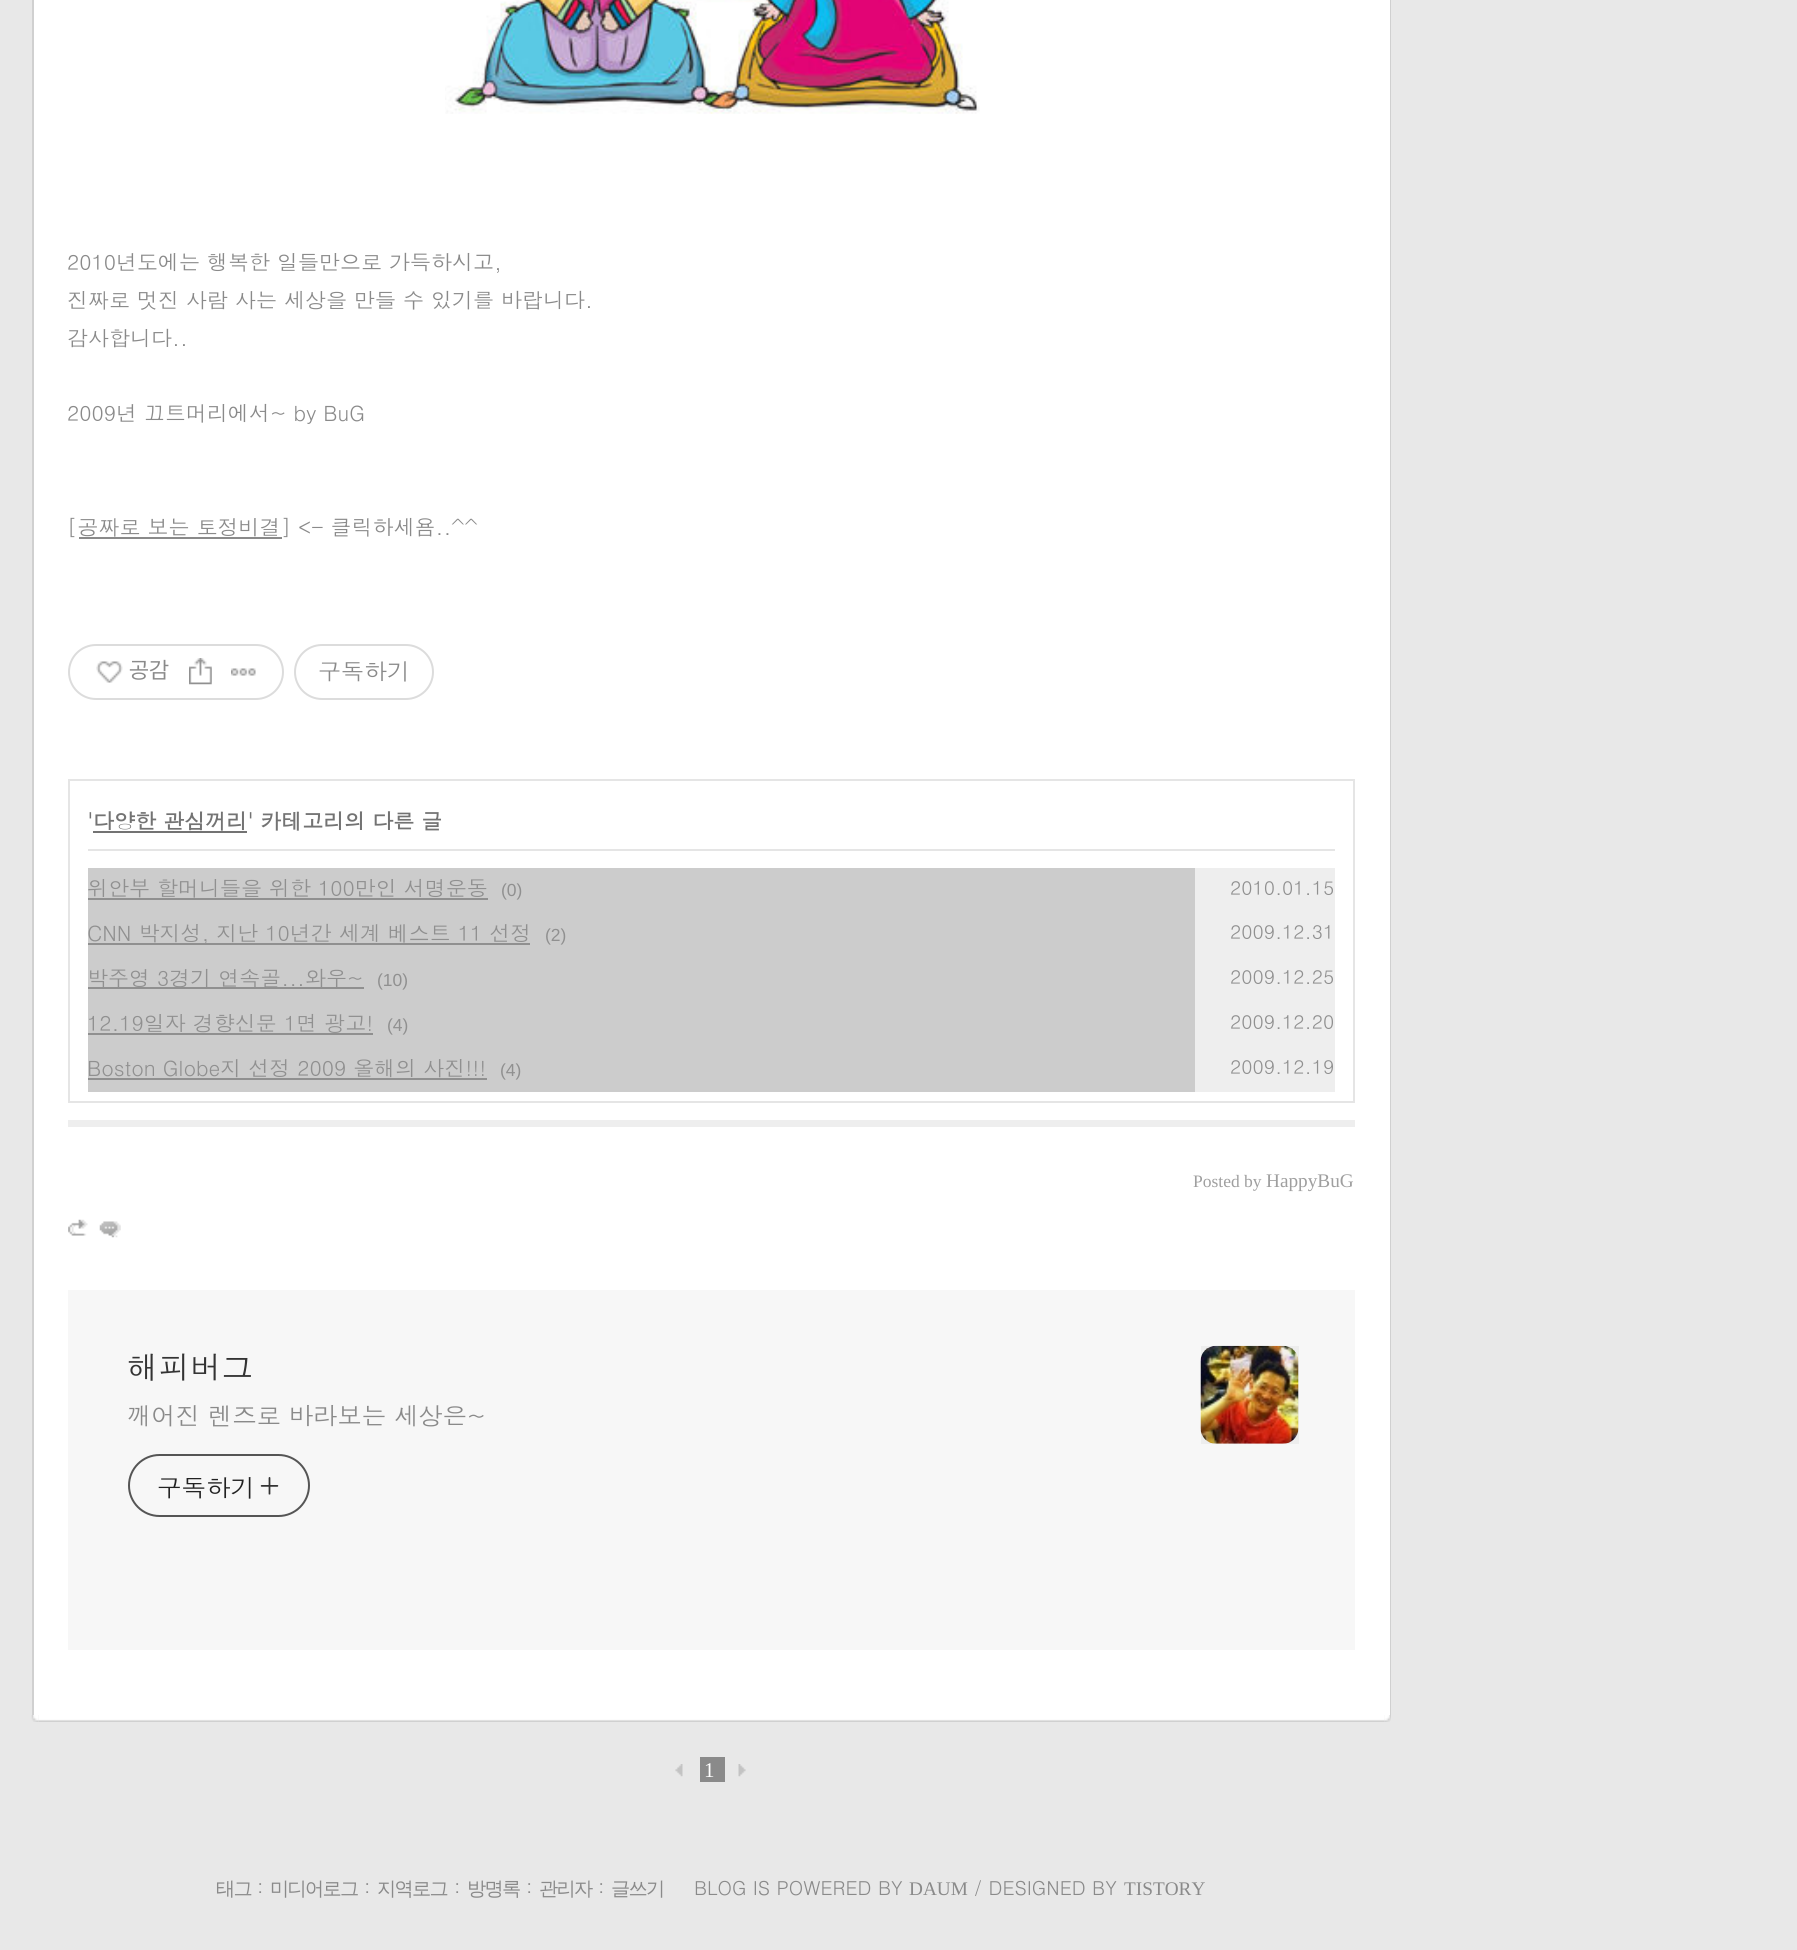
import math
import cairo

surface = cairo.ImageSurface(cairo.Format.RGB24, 1797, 1950)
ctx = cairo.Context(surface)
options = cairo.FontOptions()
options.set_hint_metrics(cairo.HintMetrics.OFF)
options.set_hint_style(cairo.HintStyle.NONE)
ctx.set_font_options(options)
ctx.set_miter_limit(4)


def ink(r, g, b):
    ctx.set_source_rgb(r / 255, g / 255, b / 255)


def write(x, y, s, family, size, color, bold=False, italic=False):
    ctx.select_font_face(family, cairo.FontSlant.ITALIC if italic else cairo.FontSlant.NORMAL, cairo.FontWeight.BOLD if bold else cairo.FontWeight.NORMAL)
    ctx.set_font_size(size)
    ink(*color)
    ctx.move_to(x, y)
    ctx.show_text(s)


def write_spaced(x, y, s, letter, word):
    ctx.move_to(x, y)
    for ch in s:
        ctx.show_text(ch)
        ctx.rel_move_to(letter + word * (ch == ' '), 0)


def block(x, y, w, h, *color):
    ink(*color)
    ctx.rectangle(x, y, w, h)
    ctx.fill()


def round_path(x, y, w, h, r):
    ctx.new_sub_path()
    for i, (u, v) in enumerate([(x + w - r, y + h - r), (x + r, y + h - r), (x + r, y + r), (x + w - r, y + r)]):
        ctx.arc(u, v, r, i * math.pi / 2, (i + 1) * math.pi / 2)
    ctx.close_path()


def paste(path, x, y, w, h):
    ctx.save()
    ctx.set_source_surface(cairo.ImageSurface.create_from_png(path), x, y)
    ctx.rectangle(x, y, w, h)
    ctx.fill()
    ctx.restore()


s1 = dict(family="Dotum", size=21, color=(138, 138, 138))
s2 = dict(family="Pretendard", size=23, color=(138, 138, 138))
s3 = dict(family="Dotum", size=23, color=(138, 138, 138))
s4 = dict(family="Dotum", size=21, color=(115, 115, 115), bold=True)
s5 = dict(family="Dotum", size=21, color=(144, 144, 144))
s6 = dict(family="Liberation Sans", size=17.5, color=(144, 144, 144))
s7 = dict(family="Dotum", size=19.25, color=(144, 144, 144))
s8 = dict(family="Liberation Serif", size=17.5, color=(159, 159, 159))
s9 = dict(family="Liberation Serif", size=19.25, color=(159, 159, 159))
s10 = dict(family="Dotum", size=31.5, color=(51, 51, 51))
s11 = dict(family="Dotum", size=24.5, color=(34, 34, 34))
s12 = dict(family="Liberation Serif", size=21, color=(255, 255, 255))
s13 = dict(family="Dotum", size=19.25, color=(138, 138, 138))
s14 = dict(family="Liberation Serif", size=19.25, color=(138, 138, 138))

ink(232, 232, 232)
ctx.paint()
block(34, 0, 1356, 1715, 255, 255, 255)
block(1390, 0, 1, 1715, 208, 208, 208)
block(32, 0, 2, 1715, 208, 208, 208)
paste("pic1.png", 445, 0, 535, 114)
write(67, 270, "2010년도에는 행복한 일들만으로 가득하시고,", **s1)
write(67, 308, "진짜로 멋진 사람 사는 세상을 만들 수 있기를 바랍니다.", **s1)
write(67, 346, "감사합니다..", **s1)
write(67, 421, "2009년 끄트머리에서~ by BuG", **s1)
write(67, 535, "[공짜로 보는 토정비결] <- 클릭하세욤..^^", **s1)
block(79, 537, 203, 2, 138, 138, 138)
round_path(69, 645, 214, 54, 27)
ink(220, 220, 220)
ctx.stroke()
paste("pic2.png", 96, 661, 27, 22)
write(129, 678, "공감", **s2)
paste("pic3.png", 189, 658, 23, 27)
paste("pic4.png", 231, 668, 25, 8)
round_path(295, 645, 138, 54, 27)
ink(220, 220, 220)
ctx.stroke()
write(318, 680, "구독하기", **s3)
ctx.rectangle(69, 780, 1285, 322)
ink(229, 229, 229)
ctx.stroke()
block(88, 849, 1247, 2, 229, 229, 229)
write(87, 829, "'다양한 관심꺼리' 카테고리의 다른 글", **s4)
block(93, 831, 154, 2, 115, 115, 115)
block(88, 868, 1107, 224, 204, 204, 204)
write(87, 896, "위안부 할머니들을 위한 100만인 서명운동", **s5)
block(88, 898, 400, 2, 144, 144, 144)
write(501, 896, "(0)", **s6)
block(1195, 868, 140, 224, 238, 238, 238)
write(1230, 895, "2010.01.15", **s7)
block(88, 943, 442, 2, 144, 144, 144)
write(87, 941, "CNN 박지성, 지난 10년간 세계 베스트 11 선정", **s5)
write(545, 941, "(2)", **s6)
write(1230, 939, "2009.12.31", **s7)
block(88, 987, 276, 2, 144, 144, 144)
write(87, 986, "박주영 3경기 연속골...와우~", **s5)
write(377, 986, "(10)", **s6)
write(1230, 984, "2009.12.25", **s7)
write(87, 1031, "12.19일자 경향신문 1면 광고!", **s5)
block(88, 1033, 285, 2, 144, 144, 144)
write(387, 1031, "(4)", **s6)
write(1230, 1029, "2009.12.20", **s7)
write(87, 1076, "Boston Globe지 선정 2009 올해의 사진!!!", **s5)
block(88, 1078, 399, 2, 144, 144, 144)
write(500, 1076, "(4)", **s6)
write(1230, 1074, "2009.12.19", **s7)
block(68, 1120, 1287, 7, 238, 238, 238)
write(1193, 1187, "Posted by", **s8)
write(1266, 1187, "HappyBuG", **s9)
paste("pic5.png", 68, 1219, 20, 17)
paste("pic6.png", 99, 1221, 22, 17)
block(68, 1290, 1287, 360, 247, 247, 247)
write(127, 1379, "해피버그", **s10)
ctx.set_font_size(24.5)
ink(138, 138, 138)
write_spaced(127, 1425, "깨어진 렌즈로 바라보는 세상은~", -0.2, 0)
round_path(129, 1455, 180, 61, 30.5)
ink(85, 85, 85)
ctx.stroke()
write(157, 1497, "구독하기", **s11)
paste("pic7.png", 260, 1477, 19, 18)
paste("pic8.png", 1200, 1345, 99, 99)
ctx.set_source_rgba(0, 0, 0, 0.04)
ctx.rectangle(1201, 1346, 98, 98)
ctx.fill()
paste("pic9.png", 31, 1715, 8, 7)
paste("pic10.png", 38, 1715, 1347, 7)
paste("pic11.png", 1384, 1715, 7, 7)
paste("pic12.png", 675, 1764, 8, 13)
block(700, 1757, 25, 25, 138, 138, 138)
write(704, 1777, "1", **s12)
paste("pic13.png", 738, 1764, 8, 13)
ctx.select_font_face("WenQuanYi Zen Hei Medium")
ctx.set_font_size(19.25)
ink(138, 138, 138)
write_spaced(216, 1895, "태그", -1.75, 0)
write(257, 1895, ":", **s13)
ctx.select_font_face("WenQuanYi Zen Hei Medium")
write_spaced(270, 1895, "미디어로그", -1.75, 0)
write(364, 1895, ":", **s13)
ctx.select_font_face("WenQuanYi Zen Hei Medium")
write_spaced(377, 1895, "지역로그", -1.75, 0)
write(454, 1895, ":", **s13)
ctx.select_font_face("WenQuanYi Zen Hei Medium")
write_spaced(467, 1895, "방명록", -1.75, 0)
write(526, 1895, ":", **s13)
ctx.select_font_face("WenQuanYi Zen Hei Medium")
write_spaced(539, 1895, "관리자", -1.75, 0)
write(598, 1895, ":", **s13)
ctx.select_font_face("WenQuanYi Zen Hei Medium")
write_spaced(611, 1895, "글쓰기", -1.75, 0)
write(694, 1895, "BLOG IS POWERED BY", **s13)
write(909, 1895, "DAUM", **s14)
write(974, 1895, "/ DESIGNED BY", **s13)
write(1124, 1895, "TISTORY", **s14)
surface.write_to_png("screenshot.png")
